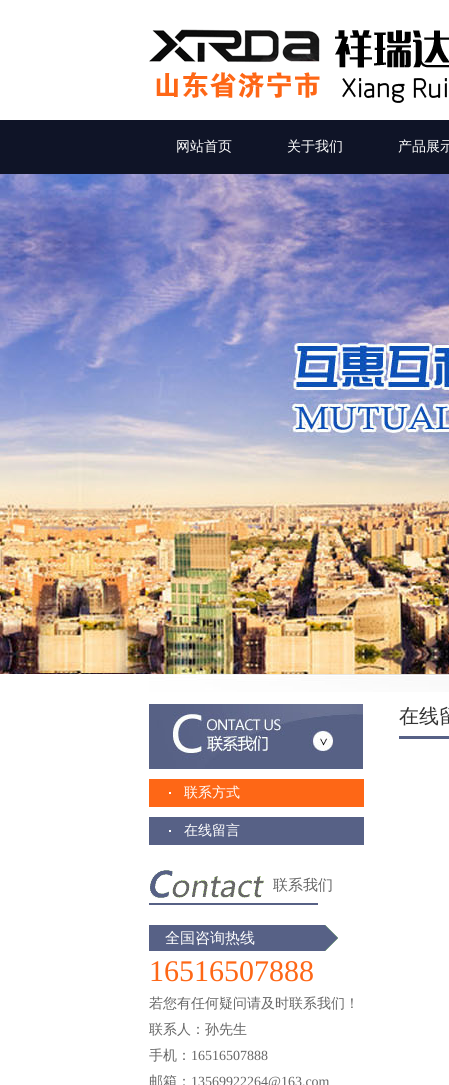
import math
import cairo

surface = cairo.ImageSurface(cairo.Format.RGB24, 449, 1085)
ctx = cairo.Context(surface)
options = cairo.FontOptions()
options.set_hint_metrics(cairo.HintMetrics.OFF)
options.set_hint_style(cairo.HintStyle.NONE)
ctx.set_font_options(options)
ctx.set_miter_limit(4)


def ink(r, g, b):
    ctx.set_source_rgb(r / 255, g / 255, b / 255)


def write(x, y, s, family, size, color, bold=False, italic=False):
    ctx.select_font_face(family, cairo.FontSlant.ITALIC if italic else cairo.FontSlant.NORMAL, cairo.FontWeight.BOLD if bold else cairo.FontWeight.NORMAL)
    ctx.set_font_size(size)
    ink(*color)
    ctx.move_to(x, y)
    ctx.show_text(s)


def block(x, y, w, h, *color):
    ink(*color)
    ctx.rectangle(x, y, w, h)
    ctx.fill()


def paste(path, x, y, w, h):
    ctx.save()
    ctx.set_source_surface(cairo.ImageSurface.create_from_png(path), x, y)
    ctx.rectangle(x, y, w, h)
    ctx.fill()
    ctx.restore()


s1 = dict(family="WenQuanYi Zen Hei Medium", size=14, color=(255, 255, 255))
s2 = dict(family="WenQuanYi Zen Hei Medium", size=20, color=(51, 51, 51))
s3 = dict(family="WenQuanYi Zen Hei Medium", size=15, color=(102, 102, 102))
s4 = dict(family="WenQuanYi Zen Hei Medium", size=15, color=(255, 255, 255))
s5 = dict(family="Liberation Serif", size=30, color=(254, 103, 22))
s6 = dict(family="WenQuanYi Zen Hei Medium", size=14, color=(102, 102, 102))
s7 = dict(family="Liberation Serif", size=14, color=(102, 102, 102))

ink(255, 255, 255)
ctx.paint()
paste("pic1.png", 149, 29, 300, 74)
block(0, 120, 449, 54, 15, 20, 39)
write(176, 151, "网站首页", **s1)
write(287, 151, "关于我们", **s1)
write(398, 151, "产品展示", **s1)
paste("pic2.png", 0, 174, 449, 500)
paste("pic3.png", 149, 674, 300, 18)
block(399, 736, 50, 3, 87, 97, 134)
write(399, 723, "在线留", **s2)
paste("pic4.png", 149, 704, 214, 65)
block(149, 779, 215, 28, 254, 103, 22)
block(169, 792, 2, 2, 254, 255, 255)
write(184, 797, "联系方式", **s1)
block(149, 817, 215, 28, 87, 97, 134)
block(169, 830, 2, 2, 254, 255, 255)
write(184, 835, "在线留言", **s1)
paste("pic5.png", 149, 870, 169, 35)
write(273, 890, "联系我们", **s3)
paste("pic6.png", 149, 925, 189, 26)
write(165, 943, "全国咨询热线", **s4)
write(149, 981, "16516507888", **s5)
write(149, 1008, "若您有任何疑问请及时联系我们！", **s6)
write(149, 1034, "联系人：孙先生", **s6)
write(149, 1060, "手机：", **s6)
write(191, 1060, "16516507888", **s7)
write(149, 1086, "邮箱：", **s6)
write(191, 1086, "13569922264@163.com", **s7)
surface.write_to_png("screenshot.png")
